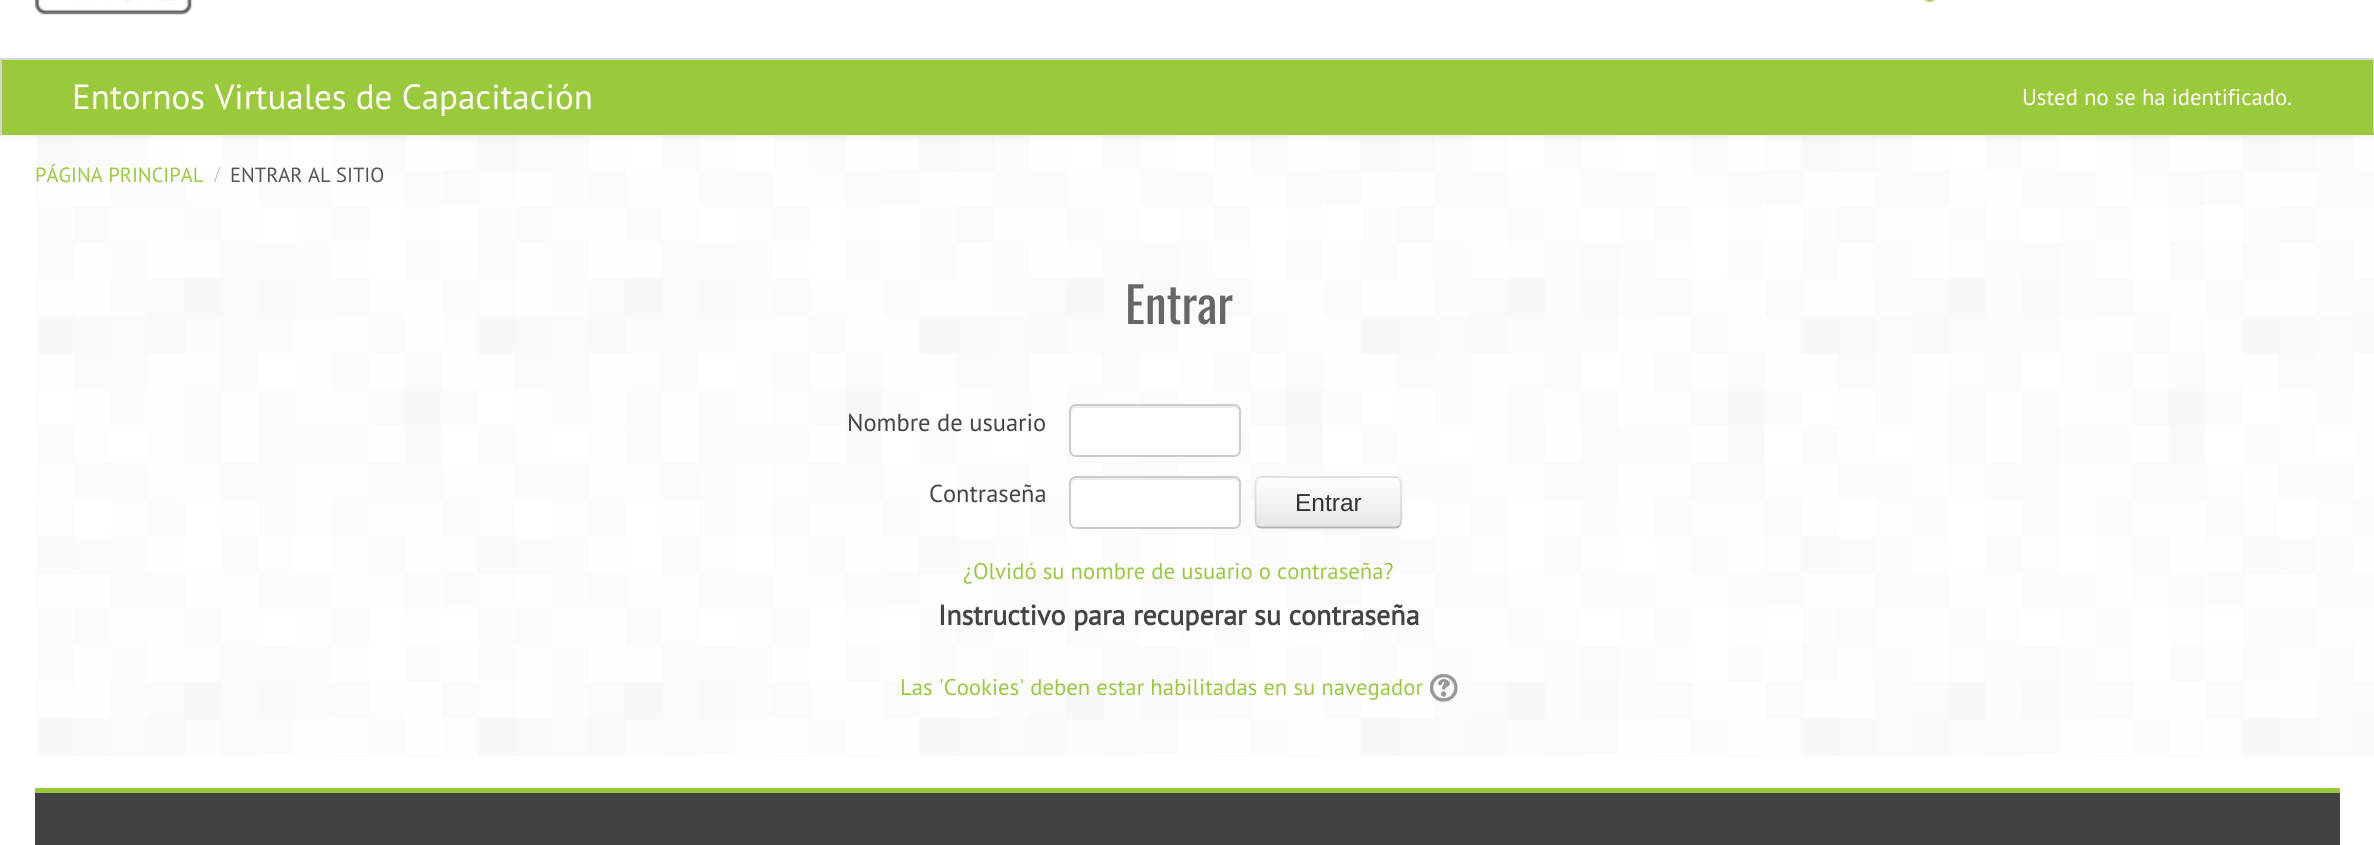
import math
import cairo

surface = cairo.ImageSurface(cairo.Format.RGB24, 2374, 845)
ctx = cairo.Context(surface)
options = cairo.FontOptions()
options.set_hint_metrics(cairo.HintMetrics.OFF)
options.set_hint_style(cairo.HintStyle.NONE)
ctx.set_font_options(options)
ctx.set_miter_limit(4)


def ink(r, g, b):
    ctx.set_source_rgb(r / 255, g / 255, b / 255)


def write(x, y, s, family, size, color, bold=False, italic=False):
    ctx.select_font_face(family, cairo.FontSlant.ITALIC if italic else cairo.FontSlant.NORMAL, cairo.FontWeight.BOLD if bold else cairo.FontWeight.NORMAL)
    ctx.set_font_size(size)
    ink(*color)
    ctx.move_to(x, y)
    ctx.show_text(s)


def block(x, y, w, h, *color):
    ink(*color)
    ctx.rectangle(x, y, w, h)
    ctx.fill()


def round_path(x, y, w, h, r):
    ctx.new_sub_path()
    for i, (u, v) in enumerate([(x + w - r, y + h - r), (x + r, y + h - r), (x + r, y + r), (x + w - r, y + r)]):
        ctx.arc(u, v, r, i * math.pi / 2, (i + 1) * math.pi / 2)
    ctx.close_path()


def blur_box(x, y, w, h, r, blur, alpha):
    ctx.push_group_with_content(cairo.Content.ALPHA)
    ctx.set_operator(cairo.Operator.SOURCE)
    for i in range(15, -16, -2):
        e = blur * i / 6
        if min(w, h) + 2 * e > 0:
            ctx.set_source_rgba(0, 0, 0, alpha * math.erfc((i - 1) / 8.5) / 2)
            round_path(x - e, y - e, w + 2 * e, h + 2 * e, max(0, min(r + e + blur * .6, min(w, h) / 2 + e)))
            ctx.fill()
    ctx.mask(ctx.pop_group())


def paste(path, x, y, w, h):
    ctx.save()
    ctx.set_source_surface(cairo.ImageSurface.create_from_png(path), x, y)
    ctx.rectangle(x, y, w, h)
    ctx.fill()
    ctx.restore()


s1 = dict(family="PT Sans", size=35, color=(255, 255, 255))
s2 = dict(family="PT Sans", size=22.75, color=(255, 255, 255))
s3 = dict(family="PT Sans", size=20.5, color=(154, 202, 60))
s4 = dict(family="Liberation Serif", size=23, color=(187, 187, 187))
s5 = dict(family="PT Sans", size=20.5, color=(85, 85, 85))
s6 = dict(family="Oswald", size=49, color=(102, 102, 102))
s7 = dict(family="PT Sans", size=24.5, color=(68, 68, 68))
s8 = dict(family="Liberation Sans", size=24.5, color=(51, 51, 51))
s9 = dict(family="PT Sans", size=22.75, color=(154, 202, 60))
s10 = dict(family="PT Sans", size=28, color=(68, 68, 68), bold=True)

ink(255, 255, 255)
ctx.paint()
paste("pic1.png", 36, 135, 2338, 622)
block(0, 58, 2374, 2, 221, 221, 221)
paste("pic2.png", 35, 0, 158, 15)
paste("pic3.png", 1922, 0, 14, 3)
ink(0, 0, 0)
blur_box(0, 61, 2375, 76, 0, 3.5, 0.07)
block(2, 60, 2371, 73, 154, 202, 60)
block(2373, 60, 1, 75, 212, 212, 212)
block(0, 133, 2374, 2, 154, 202, 60)
block(0, 60, 2, 75, 212, 212, 212)
write(72, 109, "Entornos Virtuales de Capacitación", **s1)
write(2022, 105, "Usted no se ha identificado.", **s2)
write(35, 182, "PÁGINA PRINCIPAL", **s3)
write(214, 182, "/", **s4)
write(230, 182, "ENTRAR AL SITIO", **s5)
write(1125, 324, "Entrar", **s6)
write(847, 431, "Nombre de usuario", **s7)
ink(255, 255, 255)
round_path(1069, 404, 172, 53, 7)
ctx.fill()
ink(236, 236, 236)
ctx.new_path()
ctx.move_to(1076, 408)
ctx.line_to(1234, 408)
ctx.curve_to(1237, 408, 1239, 410, 1239, 413)
ctx.line_to(1239, 411)
ctx.curve_to(1239, 408, 1237, 406, 1234, 406)
ctx.line_to(1076, 406)
ctx.curve_to(1073, 406, 1071, 408, 1071, 411)
ctx.line_to(1071, 413)
ctx.curve_to(1071, 410, 1073, 408, 1076, 408)
ctx.close_path()
ctx.fill()
round_path(1070, 405, 170, 51, 6)
ink(204, 204, 204)
ctx.stroke()
write(929, 502, "Contraseña", **s7)
ink(255, 255, 255)
round_path(1069, 476, 172, 53, 7)
ctx.fill()
ink(236, 236, 236)
ctx.new_path()
ctx.move_to(1076, 480)
ctx.line_to(1234, 480)
ctx.curve_to(1237, 480, 1239, 482, 1239, 485)
ctx.line_to(1239, 483)
ctx.curve_to(1239, 480, 1237, 478, 1234, 478)
ctx.line_to(1076, 478)
ctx.curve_to(1073, 478, 1071, 480, 1071, 483)
ctx.line_to(1071, 485)
ctx.curve_to(1071, 482, 1073, 480, 1076, 480)
ctx.close_path()
ctx.fill()
round_path(1070, 477, 170, 51, 6)
ink(204, 204, 204)
ctx.stroke()
ink(0, 0, 0)
blur_box(1255, 478, 147, 52, 7, 2, 0.05)
ink(245, 245, 245)
round_path(1255, 476, 147, 53, 7)
ctx.fill()
ctx.save()
round_path(1255, 476, 147, 53, 7)
ctx.clip()
gradient = cairo.LinearGradient(1328, 478, 1328, 527)
gradient.add_color_stop_rgba(0, 1, 1, 1, 1)
gradient.add_color_stop_rgba(1, 0.902, 0.902, 0.902, 1)
ctx.set_source(gradient)
ctx.rectangle(1255, 478, 147, 49)
ctx.fill()
ctx.restore()
ctx.new_path()
ctx.move_to(1399, 526)
ctx.curve_to(1398, 527, 1396.5, 527.5, 1395, 527.5)
ctx.line_to(1262, 527.5)
ctx.curve_to(1260, 527.5, 1258.5, 527, 1257.5, 526)
ink(179, 179, 179)
ctx.set_line_width(1.8)
ctx.stroke()
ctx.new_path()
ctx.move_to(1257.5, 526)
ctx.curve_to(1254.5, 523, 1255.5, 518.5, 1255.5, 515)
ctx.line_to(1255.5, 502)
ctx.curve_to(1255.5, 472, 1252, 477, 1284, 477)
ctx.line_to(1395, 477)
ctx.curve_to(1401.5, 477, 1401, 484.5, 1401, 489.5)
ctx.line_to(1401, 508.5)
ctx.curve_to(1401, 512.5, 1402.5, 522.5, 1399, 526)
ctx.set_source_rgba(0, 0, 0, 0.1)
ctx.stroke()
write(1295, 511, "Entrar", **s8)
write(963, 579, "¿Olvidó su nombre de usuario o contraseña?", **s9)
write(938, 625, "Instructivo para recuperar su contraseña", **s10)
write(900, 695, "Las 'Cookies' deben estar habilitadas en su navegador", **s9)
paste("pic4.png", 1430, 674, 28, 28)
block(35, 793, 2305, 52, 65, 64, 66)
block(35, 788, 2305, 5, 154, 202, 60)
surface.write_to_png("screenshot.png")
